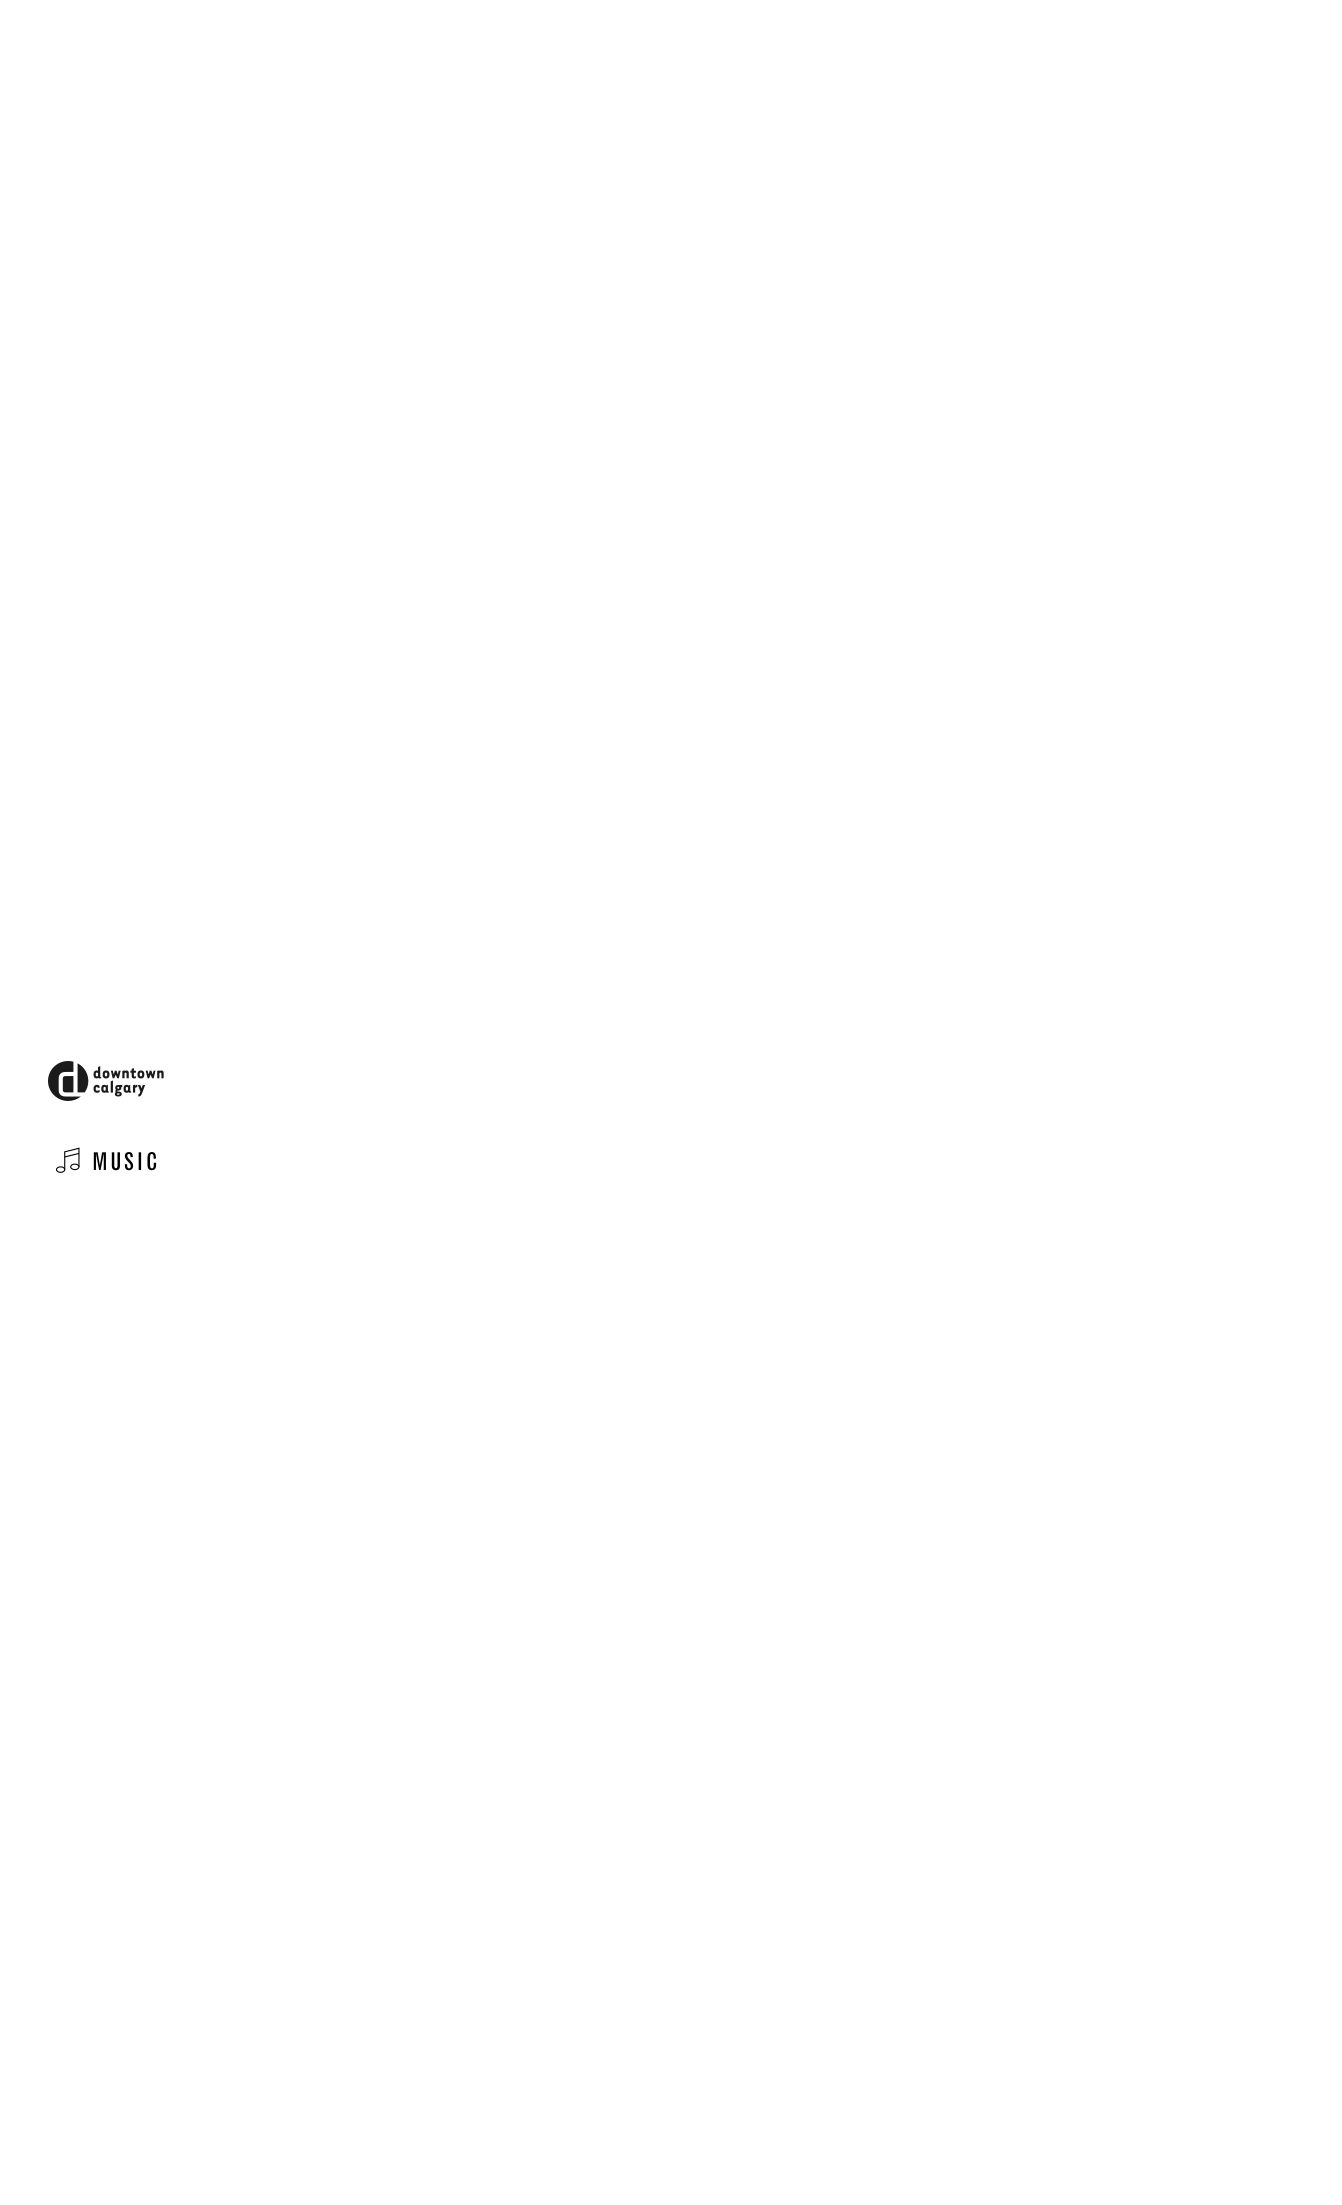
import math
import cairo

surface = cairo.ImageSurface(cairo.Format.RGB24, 1342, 2205)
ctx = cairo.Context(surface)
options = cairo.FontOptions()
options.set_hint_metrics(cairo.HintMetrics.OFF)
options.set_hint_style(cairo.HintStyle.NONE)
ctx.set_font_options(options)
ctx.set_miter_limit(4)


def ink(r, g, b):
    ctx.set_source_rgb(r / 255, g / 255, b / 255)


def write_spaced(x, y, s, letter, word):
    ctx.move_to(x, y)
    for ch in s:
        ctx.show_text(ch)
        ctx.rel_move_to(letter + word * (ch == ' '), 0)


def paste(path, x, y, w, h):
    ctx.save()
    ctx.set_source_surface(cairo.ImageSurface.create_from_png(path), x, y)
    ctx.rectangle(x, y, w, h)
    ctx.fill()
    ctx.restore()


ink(255, 255, 255)
ctx.paint()
paste("pic1.png", 48, 1061, 116, 40)
paste("pic2.png", 55, 1147, 25, 26)
ctx.select_font_face("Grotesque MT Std")
ctx.set_font_size(24)
ink(0, 0, 0)
write_spaced(92, 1170, "MUSIC", 2.5, 0)
surface.write_to_png("screenshot.png")
